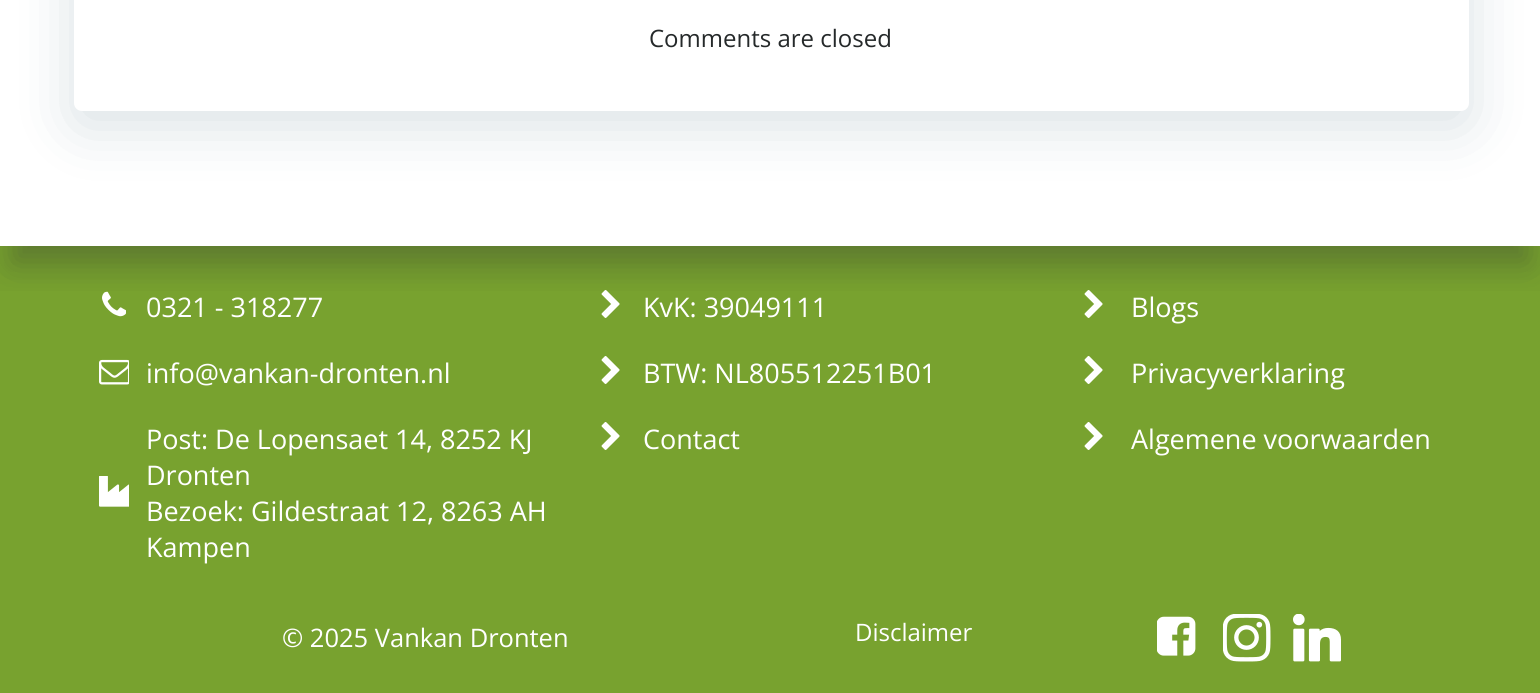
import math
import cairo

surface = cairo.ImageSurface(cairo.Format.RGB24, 1540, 693)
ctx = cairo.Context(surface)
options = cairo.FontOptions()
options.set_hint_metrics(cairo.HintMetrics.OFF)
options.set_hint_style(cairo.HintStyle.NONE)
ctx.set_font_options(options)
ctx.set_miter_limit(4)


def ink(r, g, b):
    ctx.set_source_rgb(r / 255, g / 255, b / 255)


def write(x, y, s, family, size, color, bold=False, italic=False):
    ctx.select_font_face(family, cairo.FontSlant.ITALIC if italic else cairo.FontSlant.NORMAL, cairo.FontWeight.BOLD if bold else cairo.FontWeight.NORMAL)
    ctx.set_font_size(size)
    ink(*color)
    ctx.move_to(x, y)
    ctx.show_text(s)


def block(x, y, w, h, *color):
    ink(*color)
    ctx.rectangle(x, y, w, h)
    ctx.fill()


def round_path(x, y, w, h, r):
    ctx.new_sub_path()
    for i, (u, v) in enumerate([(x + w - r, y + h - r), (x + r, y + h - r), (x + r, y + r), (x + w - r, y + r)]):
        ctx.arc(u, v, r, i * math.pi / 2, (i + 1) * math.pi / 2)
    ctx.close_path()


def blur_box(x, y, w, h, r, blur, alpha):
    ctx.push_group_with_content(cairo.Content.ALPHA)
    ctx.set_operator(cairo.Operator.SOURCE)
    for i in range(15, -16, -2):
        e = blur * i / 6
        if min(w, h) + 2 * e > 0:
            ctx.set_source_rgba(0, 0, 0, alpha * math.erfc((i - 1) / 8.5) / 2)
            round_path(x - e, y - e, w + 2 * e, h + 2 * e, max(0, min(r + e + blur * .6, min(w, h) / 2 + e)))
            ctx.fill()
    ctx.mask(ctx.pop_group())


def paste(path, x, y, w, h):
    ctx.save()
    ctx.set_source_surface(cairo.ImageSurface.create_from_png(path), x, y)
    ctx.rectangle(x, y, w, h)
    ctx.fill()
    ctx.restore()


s1 = dict(family="Open Sans", size=24, color=(37, 41, 42))
s2 = dict(family="Open Sans", size=27, color=(255, 255, 255))
s3 = dict(family="Open Sans", size=25.5, color=(255, 255, 255))
s4 = dict(family="Open Sans", size=24, color=(255, 255, 255))

ink(255, 255, 255)
ctx.paint()
block(0, 246, 1540, 447, 120, 162, 47)
paste("pic1.png", 102, 291, 24, 26)
paste("pic4.png", 601, 290, 19, 28)
paste("pic4.png", 1084, 290, 19, 28)
ctx.save()
ctx.rectangle(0, 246, 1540, 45)
ctx.clip()
ink(0, 0, 0)
blur_box(0, -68, 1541, 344, 0, 22.5, 0.08)
ctx.restore()
ctx.save()
ctx.rectangle(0, 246, 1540, 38)
ctx.clip()
ink(49, 52, 57)
blur_box(15, -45, 1511, 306, 0, 15, 0.3)
ctx.restore()
ink(1, 51, 74)
blur_box(74, -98, 1395, 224, 8, 30, 0.15)
ink(255, 255, 255)
round_path(74, -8, 1395, 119, 8)
ctx.fill()
write(649, 47, "Comments are closed", **s1)
write(146, 317, "0321 - 318277", **s2)
paste("pic2.png", 99, 359, 30, 26)
write(146, 383, "info@vankan-dronten.nl", **s2)
paste("pic3.png", 99, 476, 30, 31)
write(146, 449, "Post: De Lopensaet 14, 8252 KJ", **s2)
write(146, 485, "Dronten", **s2)
write(146, 521, "Bezoek: Gildestraat 12, 8263 AH", **s2)
write(146, 557, "Kampen", **s2)
write(643, 317, "KvK: 39049111", **s2)
paste("pic4.png", 601, 356, 19, 28)
write(643, 383, "BTW: NL805512251B01", **s2)
paste("pic4.png", 601, 422, 19, 28)
write(643, 449, "Contact", **s2)
write(1131, 317, "Blogs", **s2)
paste("pic4.png", 1084, 356, 19, 28)
write(1131, 383, "Privacyverklaring", **s2)
paste("pic4.png", 1084, 422, 19, 28)
write(1131, 449, "Algemene voorwaarden", **s2)
write(282, 647, "© 2025 Vankan Dronten", **s3)
write(855, 641, "Disclaimer", **s4)
paste("pic5.png", 1157, 616, 39, 40)
paste("pic6.png", 1223, 614, 48, 48)
paste("pic7.png", 1293, 614, 48, 48)
surface.write_to_png("screenshot.png")
